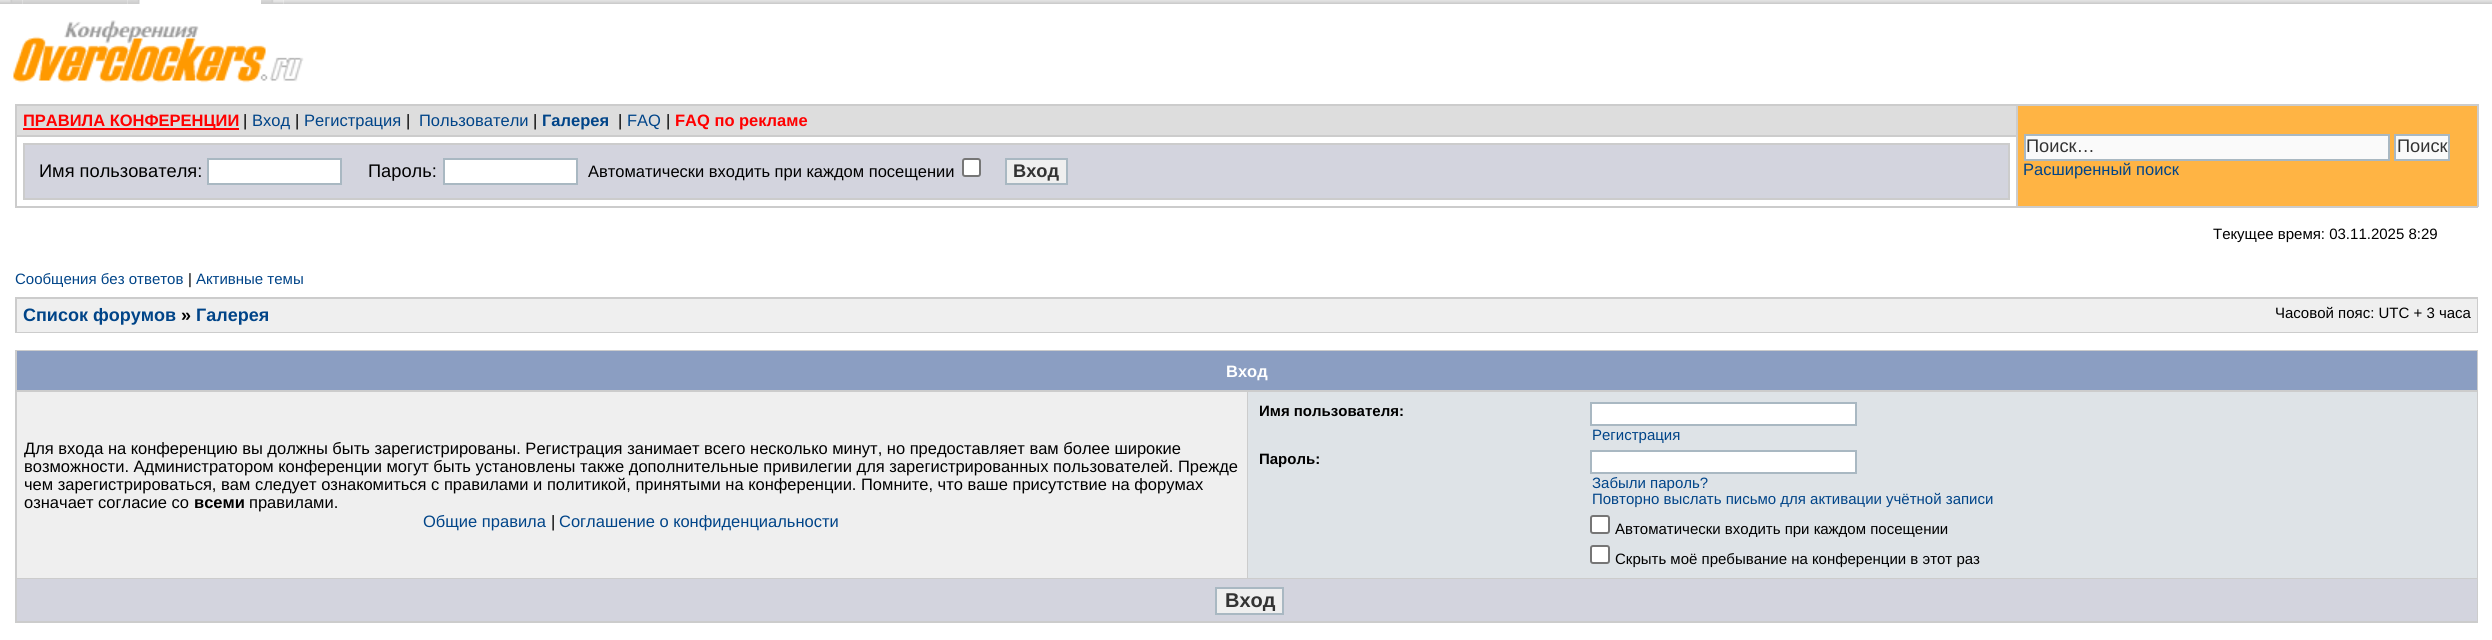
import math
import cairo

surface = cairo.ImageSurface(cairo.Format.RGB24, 2492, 640)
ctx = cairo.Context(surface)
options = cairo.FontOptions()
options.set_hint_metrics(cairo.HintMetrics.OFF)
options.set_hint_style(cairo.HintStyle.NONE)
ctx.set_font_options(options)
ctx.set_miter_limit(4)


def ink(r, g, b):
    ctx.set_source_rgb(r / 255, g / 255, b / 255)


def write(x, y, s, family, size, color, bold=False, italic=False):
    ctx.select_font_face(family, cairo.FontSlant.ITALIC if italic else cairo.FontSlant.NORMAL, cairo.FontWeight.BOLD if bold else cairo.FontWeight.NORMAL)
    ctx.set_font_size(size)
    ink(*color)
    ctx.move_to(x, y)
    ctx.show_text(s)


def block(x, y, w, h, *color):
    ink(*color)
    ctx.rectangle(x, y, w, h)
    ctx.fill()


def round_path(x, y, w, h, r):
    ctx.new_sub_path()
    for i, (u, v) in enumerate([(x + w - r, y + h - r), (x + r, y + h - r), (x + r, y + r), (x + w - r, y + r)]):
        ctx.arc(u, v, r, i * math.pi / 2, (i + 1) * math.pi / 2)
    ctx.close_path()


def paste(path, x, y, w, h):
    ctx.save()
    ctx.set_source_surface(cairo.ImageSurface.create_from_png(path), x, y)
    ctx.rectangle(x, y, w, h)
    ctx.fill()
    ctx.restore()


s1 = dict(family="Liberation Sans", size=16.5, color=(255, 0, 0), bold=True)
s2 = dict(family="Liberation Sans", size=16.5, color=(0, 0, 0))
s3 = dict(family="Liberation Sans", size=16.5, color=(0, 68, 136))
s4 = dict(family="Liberation Sans", size=16.5, color=(0, 68, 136), bold=True)
s5 = dict(family="Liberation Sans", size=18.25, color=(51, 51, 51))
s6 = dict(family="Liberation Sans", size=18.25, color=(0, 0, 0))
s7 = dict(family="Liberation Sans", size=18.25, color=(51, 51, 51), bold=True)
s8 = dict(family="Liberation Sans", size=15, color=(0, 0, 0))
s9 = dict(family="Liberation Sans", size=15, color=(0, 68, 136))
s10 = dict(family="Liberation Sans", size=18, color=(0, 68, 136), bold=True)
s11 = dict(family="Liberation Sans", size=18, color=(0, 0, 0), bold=True)
s12 = dict(family="Liberation Sans", size=16.5, color=(255, 255, 255), bold=True)
s13 = dict(family="Liberation Sans", size=16.5, color=(0, 0, 0), bold=True)
s14 = dict(family="Liberation Sans", size=15, color=(0, 0, 0), bold=True)
s15 = dict(family="Liberation Sans", size=20, color=(51, 51, 51), bold=True)

ink(255, 255, 255)
ctx.paint()
paste("pic2.png", 22, 0, 106, 4)
paste("pic1.png", 0, 0, 23, 4)
paste("pic3.png", 127, 0, 13, 4)
paste("pic5.png", 283, 0, 2209, 4)
paste("pic4.png", 261, 0, 23, 4)
paste("pic6.png", 13, 20, 291, 63)
block(17, 106, 1999, 29, 221, 221, 221)
block(15, 104, 2463, 2, 204, 204, 204)
block(2477, 104, 2, 103, 204, 204, 204)
block(15, 206, 2463, 2, 204, 204, 204)
block(15, 104, 2, 103, 204, 204, 204)
block(23, 128, 216, 2, 255, 0, 0)
write(23, 126, "ПРАВИЛА КОНФЕРЕНЦИИ", **s1)
write(243, 126, "|", **s2)
write(252, 126, "Вход", **s3)
write(295, 126, "|", **s2)
write(304, 126, "Регистрация", **s3)
write(406, 126, "|", **s2)
write(419, 126, "Пользователи", **s3)
write(533, 126, "|", **s2)
write(542, 126, "Галерея", **s4)
write(618, 126, "|", **s2)
write(627, 126, "FAQ", **s3)
write(666, 126, "|", **s2)
write(675, 126, "FAQ по рекламе", **s1)
block(2018, 106, 459, 100, 255, 180, 68)
block(15, 135, 2003, 2, 204, 204, 204)
block(2016, 104, 2, 103, 204, 204, 204)
ink(250, 250, 250)
ctx.rectangle(2025, 135, 364, 25)
ctx.fill_preserve()
ink(169, 184, 194)
ctx.stroke()
write(2026, 152, "Поиск…", **s5)
ink(250, 250, 250)
ctx.rectangle(2395, 135, 54, 25)
ctx.fill_preserve()
ink(169, 184, 194)
ctx.stroke()
write(2397, 152, "Поиск", **s5)
write(2023, 175, "Расширенный поиск", **s3)
ink(211, 212, 222)
ctx.rectangle(24, 144, 1985, 55)
ctx.fill_preserve()
ink(204, 204, 204)
ctx.stroke()
write(39, 177, "Имя пользователя:", **s6)
ink(255, 255, 255)
ctx.rectangle(208, 159, 133, 25)
ctx.fill_preserve()
ink(169, 184, 194)
ctx.stroke()
write(368, 177, "Пароль:", **s6)
ink(255, 255, 255)
ctx.rectangle(444, 159, 133, 25)
ctx.fill_preserve()
ink(169, 184, 194)
ctx.stroke()
write(588, 177, "Автоматически входить при каждом посещении", **s2)
ink(255, 255, 255)
round_path(963, 159, 17, 17, 2)
ctx.fill_preserve()
ink(118, 118, 118)
ctx.stroke()
ink(239, 239, 239)
ctx.rectangle(1006, 159, 61, 25)
ctx.fill_preserve()
ink(169, 184, 194)
ctx.stroke()
write(1013, 177, "Вход", **s7)
write(2213, 239, "Текущее время: 03.11.2025 8:29", **s8)
write(15, 284, "Сообщения без ответов", **s9)
write(188, 284, "|", **s8)
write(196, 284, "Активные темы", **s9)
block(15, 297, 2463, 36, 204, 204, 204)
block(17, 299, 2460, 33, 239, 239, 239)
write(23, 321, "Список форумов", **s10)
write(181, 321, "»", **s11)
write(196, 321, "Галерея", **s10)
write(2275, 318, "Часовой пояс: UTC + 3 часа", **s8)
block(15, 350, 2463, 273, 204, 204, 204)
block(17, 351, 2460, 39, 139, 158, 194)
write(1226, 377, "Вход", **s12)
block(17, 392, 1230, 186, 239, 239, 239)
write(24, 454, "Для входа на конференцию вы должны быть зарегистрированы. Регистрация занимает всего несколько минут, но предоставляет вам более широкие", **s2)
write(24, 472, "возможности. Администратором конференции могут быть установлены также дополнительные привилегии для зарегистрированных пользователей. Прежде", **s2)
write(24, 490, "чем зарегистрироваться, вам следует ознакомиться с правилами и политикой, принятыми на конференции. Помните, что ваше присутствие на форумах", **s2)
write(24, 508, "означает согласие со", **s2)
write(194, 508, "всеми", **s13)
write(249, 508, "правилами.", **s2)
write(423, 527, "Общие правила", **s3)
write(551, 527, "|", **s2)
write(559, 527, "Соглашение о конфиденциальности", **s3)
block(1248, 392, 1229, 186, 222, 227, 231)
write(1259, 416, "Имя пользователя:", **s14)
ink(255, 255, 255)
ctx.rectangle(1591, 403, 265, 22)
ctx.fill_preserve()
ink(169, 184, 194)
ctx.stroke()
write(1592, 440, "Регистрация", **s9)
write(1259, 464, "Пароль:", **s14)
ink(255, 255, 255)
ctx.rectangle(1591, 451, 265, 22)
ctx.fill_preserve()
ink(169, 184, 194)
ctx.stroke()
write(1592, 488, "Забыли пароль?", **s9)
write(1592, 504, "Повторно выслать письмо для активации учётной записи", **s9)
ink(255, 255, 255)
round_path(1591, 516, 18, 17, 2)
ctx.fill_preserve()
ink(118, 118, 118)
ctx.stroke()
write(1615, 534, "Автоматически входить при каждом посещении", **s8)
ink(255, 255, 255)
round_path(1591, 546, 18, 17, 2)
ctx.fill_preserve()
ink(118, 118, 118)
ctx.stroke()
write(1615, 564, "Скрыть моё пребывание на конференции в этот раз", **s8)
block(17, 579, 2460, 42, 211, 212, 222)
ink(239, 239, 239)
ctx.rectangle(1216, 588, 67, 26)
ctx.fill_preserve()
ink(169, 184, 194)
ctx.stroke()
write(1225, 607, "Вход", **s15)
surface.write_to_png("screenshot.png")
